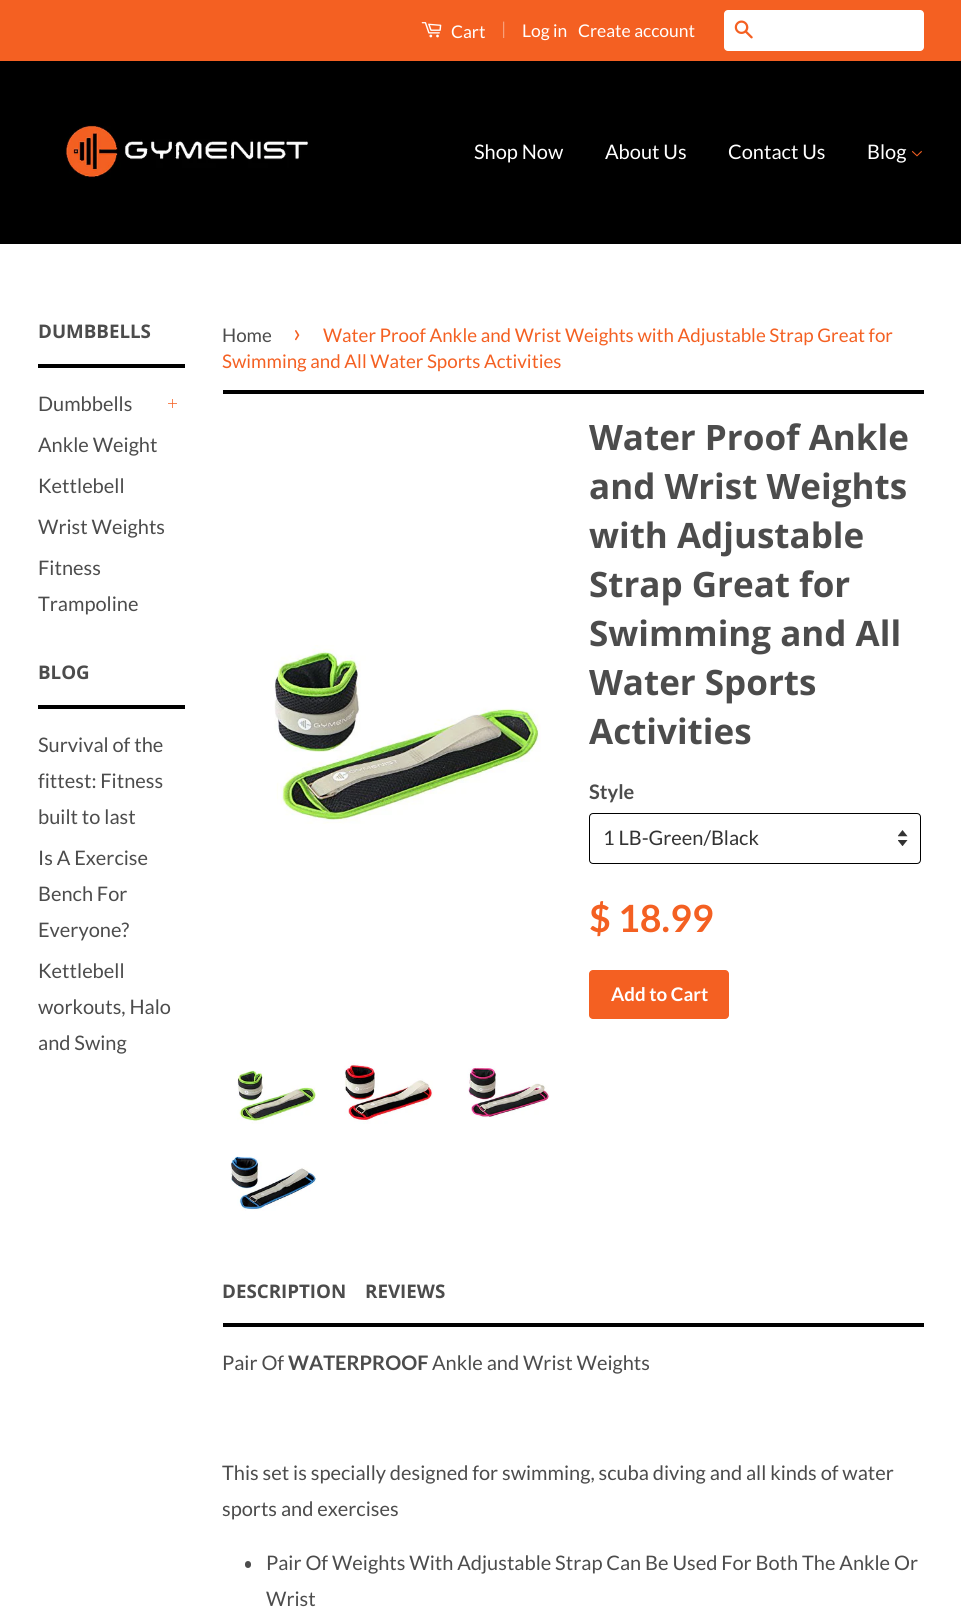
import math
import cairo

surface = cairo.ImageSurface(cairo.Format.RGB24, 961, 1614)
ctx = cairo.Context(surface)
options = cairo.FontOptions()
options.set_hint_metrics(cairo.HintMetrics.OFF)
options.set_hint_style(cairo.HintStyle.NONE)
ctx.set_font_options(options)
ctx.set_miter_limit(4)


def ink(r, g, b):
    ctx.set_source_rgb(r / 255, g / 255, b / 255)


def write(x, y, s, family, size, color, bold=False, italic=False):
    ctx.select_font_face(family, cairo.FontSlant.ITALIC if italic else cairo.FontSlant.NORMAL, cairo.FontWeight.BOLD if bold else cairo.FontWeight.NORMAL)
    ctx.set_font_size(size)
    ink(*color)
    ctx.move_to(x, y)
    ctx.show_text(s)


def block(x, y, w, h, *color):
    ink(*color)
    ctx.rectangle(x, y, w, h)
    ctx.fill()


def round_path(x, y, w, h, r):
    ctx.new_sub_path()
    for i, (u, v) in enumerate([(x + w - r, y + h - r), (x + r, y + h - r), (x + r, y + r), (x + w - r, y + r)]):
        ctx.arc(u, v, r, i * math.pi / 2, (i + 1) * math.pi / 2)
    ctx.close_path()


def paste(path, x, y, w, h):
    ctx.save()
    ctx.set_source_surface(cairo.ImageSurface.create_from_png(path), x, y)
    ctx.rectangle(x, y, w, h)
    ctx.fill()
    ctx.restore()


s1 = dict(family="Lato", size=17.5, color=(255, 255, 255))
s2 = dict(family="Lato", size=17.5, color=(248, 160, 122))
s3 = dict(family="Lato", size=20, color=(255, 255, 255))
s4 = dict(family="Open Sans", size=18.75, color=(76, 76, 76), bold=True)
s5 = dict(family="Lato", size=20, color=(76, 76, 76))
s6 = dict(family="Lato", size=18.75, color=(76, 76, 76))
s7 = dict(family="Lato", size=26, color=(244, 96, 34))
s8 = dict(family="Lato", size=18.75, color=(244, 96, 34))
s9 = dict(family="Open Sans", size=35, color=(76, 76, 76), bold=True)
s10 = dict(family="Lato", size=20, color=(76, 76, 76), bold=True)
s11 = dict(family="Lato", size=20, color=(51, 51, 51))
s12 = dict(family="Lato", size=37.5, color=(244, 96, 34), bold=True)
s13 = dict(family="Lato", size=18.75, color=(255, 255, 255), bold=True)

ink(255, 255, 255)
ctx.paint()
block(0, 0, 961, 61, 244, 96, 34)
paste("pic1.png", 421, 22, 21, 16)
write(451, 38, "Cart", **s1)
write(501, 35, "|", **s2)
write(522, 37, "Log in", **s1)
write(578, 37, "Create account", **s1)
round_path(724, 10, 200, 41, 4)
ctx.fill()
paste("pic2.png", 734, 20, 19, 19)
block(0, 61, 961, 183, 0, 0, 0)
paste("pic3.png", 65, 125, 244, 54)
write(474, 159, "Shop Now", **s3)
write(605, 159, "About Us", **s3)
write(728, 159, "Contact Us", **s3)
write(867, 159, "Blog", **s3)
paste("pic4.png", 912, 150, 10, 7)
block(38, 364, 147, 4, 0, 0, 0)
write(38, 338, "DUMBBELLS", **s4)
write(38, 411, "Dumbbells", **s5)
paste("pic5.png", 168, 399, 9, 9)
write(38, 452, "Ankle Weight", **s5)
write(38, 493, "Kettlebell", **s5)
write(38, 534, "Wrist Weights", **s5)
write(38, 575, "Fitness", **s5)
write(38, 611, "Trampoline", **s5)
block(38, 705, 147, 4, 0, 0, 0)
write(38, 679, "BLOG", **s4)
write(38, 752, "Survival of the", **s5)
write(38, 788, "fittest: Fitness", **s5)
write(38, 824, "built to last", **s5)
write(38, 865, "Is A Exercise", **s5)
write(38, 901, "Bench For", **s5)
write(38, 937, "Everyone?", **s5)
write(38, 978, "Kettlebell", **s5)
write(38, 1014, "workouts, Halo", **s5)
write(38, 1050, "and Swing", **s5)
block(223, 390, 701, 4, 0, 0, 0)
write(222, 342, "Home", **s6)
write(293, 342, "›", **s7)
write(323, 342, "Water Proof Ankle and Wrist Weights with Adjustable Strap Great for", **s8)
write(222, 368, "Swimming and All Water Sports Activities", **s8)
paste("pic6.png", 274, 645, 267, 179)
write(589, 450, "Water Proof Ankle", **s9)
write(589, 499, "and Wrist Weights", **s9)
write(589, 548, "with Adjustable", **s9)
write(589, 597, "Strap Great for", **s9)
write(589, 646, "Swimming and All", **s9)
write(589, 695, "Water Sports", **s9)
write(589, 744, "Activities", **s9)
write(589, 799, "Style", **s10)
paste("pic7.png", 898, 830, 10, 16)
round_path(589.5, 813.5, 331, 50, 3.5)
ink(0, 0, 0)
ctx.set_line_width(1)
ctx.stroke()
write(603, 845, "1 LB-Green/Black", **s11)
write(589, 932, "$ 18.99", **s12)
round_path(589, 970, 140, 49, 4)
ctx.fill()
write(611, 1001, "Add to Cart", **s13)
paste("pic8.png", 237, 1070, 79, 54)
paste("pic9.png", 344, 1061, 89, 63)
paste("pic10.png", 467, 1066, 83, 52)
paste("pic11.png", 230, 1156, 87, 55)
block(223, 1323, 701, 4, 0, 0, 0)
write(222, 1298, "DESCRIPTION", **s4)
write(365, 1298, "REVIEWS", **s4)
write(222, 1370, "Pair Of", **s5)
write(288, 1370, "WATERPROOF", **s10)
write(432, 1370, "Ankle and Wrist Weights", **s5)
write(222, 1480, "This set is specially designed for swimming, scuba diving and all kinds of water", **s5)
write(222, 1516, "sports and exercises", **s5)
round_path(245, 1561, 6, 7, 3)
ctx.fill()
write(266, 1570, "Pair Of Weights With Adjustable Strap Can Be Used For Both The Ankle Or", **s5)
write(266, 1606, "Wrist", **s5)
surface.write_to_png("screenshot.png")
